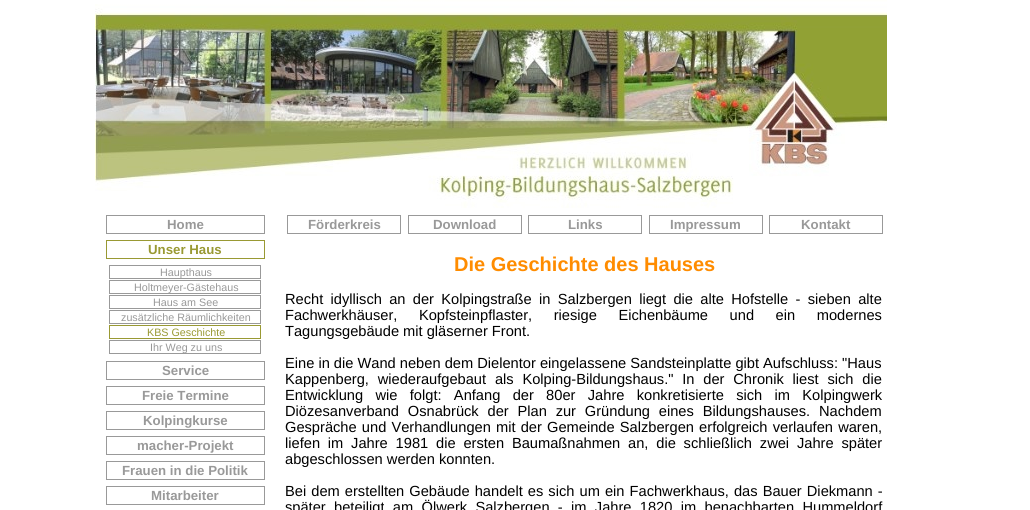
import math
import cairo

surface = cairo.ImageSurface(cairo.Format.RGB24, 1030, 510)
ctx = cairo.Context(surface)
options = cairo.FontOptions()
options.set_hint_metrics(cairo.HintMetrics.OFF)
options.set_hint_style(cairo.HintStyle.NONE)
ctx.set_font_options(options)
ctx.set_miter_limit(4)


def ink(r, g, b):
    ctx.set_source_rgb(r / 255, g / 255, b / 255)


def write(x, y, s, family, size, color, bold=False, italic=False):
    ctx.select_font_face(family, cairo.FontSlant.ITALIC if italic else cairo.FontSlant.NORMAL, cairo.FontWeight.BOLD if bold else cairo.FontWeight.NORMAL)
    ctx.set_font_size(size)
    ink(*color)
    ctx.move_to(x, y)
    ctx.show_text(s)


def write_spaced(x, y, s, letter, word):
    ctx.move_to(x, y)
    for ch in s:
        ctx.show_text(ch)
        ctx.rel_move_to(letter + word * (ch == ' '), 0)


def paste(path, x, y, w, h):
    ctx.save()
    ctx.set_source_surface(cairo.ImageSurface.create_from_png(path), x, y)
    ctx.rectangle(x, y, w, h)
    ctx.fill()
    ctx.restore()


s1 = dict(family="Liberation Sans", size=13.25, color=(153, 153, 153), bold=True)
s2 = dict(family="Liberation Sans", size=13.25, color=(153, 153, 51), bold=True)
s3 = dict(family="Liberation Sans", size=10.75, color=(153, 153, 153))
s4 = dict(family="Liberation Sans", size=10.75, color=(153, 153, 51))
s5 = dict(family="Liberation Sans", size=20, color=(255, 140, 0), bold=True)
s6 = dict(family="Liberation Sans", size=14.65, color=(0, 0, 0))

ink(255, 255, 255)
ctx.paint()
paste("pic1.png", 95, 4, 190, 187)
paste("pic2.png", 285, 0, 602, 208)
ctx.rectangle(106.5, 215.5, 158, 18)
ink(153, 153, 153)
ctx.set_line_width(1)
ctx.stroke()
write(167, 229, "Home", **s1)
ctx.rectangle(106.5, 240.5, 158, 18)
ink(153, 153, 51)
ctx.stroke()
write(148, 254, "Unser Haus", **s2)
ctx.rectangle(109.5, 265.5, 151, 13)
ink(153, 153, 153)
ctx.stroke()
write(160, 276, "Haupthaus", **s3)
ctx.rectangle(109.5, 280.5, 151, 13)
ctx.stroke()
write(134, 291, "Holtmeyer-Gästehaus", **s3)
ctx.rectangle(109.5, 295.5, 151, 13)
ctx.stroke()
write(153, 306, "Haus am See", **s3)
ctx.rectangle(109.5, 310.5, 151, 13)
ctx.stroke()
write(121, 321, "zusätzliche Räumlichkeiten", **s3)
ctx.rectangle(109.5, 325.5, 151, 13)
ink(153, 153, 51)
ctx.stroke()
write(147, 336, "KBS Geschichte", **s4)
ctx.rectangle(109.5, 340.5, 151, 13)
ink(153, 153, 153)
ctx.stroke()
write(150, 351, "Ihr Weg zu uns", **s3)
ctx.rectangle(106.5, 361.5, 158, 18)
ctx.stroke()
write(162, 375, "Service", **s1)
ctx.rectangle(106.5, 386.5, 158, 18)
ctx.stroke()
write(142, 400, "Freie Termine", **s1)
ctx.rectangle(106.5, 411.5, 158, 18)
ctx.stroke()
write(143, 425, "Kolpingkurse", **s1)
ctx.rectangle(106.5, 436.5, 158, 18)
ctx.stroke()
write(137, 450, "macher-Projekt", **s1)
ctx.rectangle(106.5, 461.5, 158, 18)
ctx.stroke()
write(122, 475, "Frauen in die Politik", **s1)
ctx.rectangle(106.5, 486.5, 158, 18)
ctx.stroke()
write(151, 500, "Mitarbeiter", **s1)
ctx.rectangle(287.5, 215.5, 113, 18)
ctx.stroke()
write(308, 229, "Förderkreis", **s1)
ctx.rectangle(408.5, 215.5, 113, 18)
ctx.stroke()
write(433, 229, "Download", **s1)
ctx.rectangle(528.5, 215.5, 113, 18)
ctx.stroke()
write(568, 229, "Links", **s1)
ctx.rectangle(649.5, 215.5, 113, 18)
ctx.stroke()
write(670, 229, "Impressum", **s1)
ctx.rectangle(769.5, 215.5, 113, 18)
ctx.stroke()
write(801, 229, "Kontakt", **s1)
write(454, 271, "Die Geschichte des Hauses", **s5)
ctx.select_font_face("Liberation Sans")
ctx.set_font_size(14.65)
ink(0, 0, 0)
write_spaced(285, 304, "Recht idyllisch an der Kolpingstraße in Salzbergen liegt die alte Hofstelle - sieben alte", 0, 3.25)
write_spaced(285, 320, "Fachwerkhäuser, Kopfsteinpflaster, riesige Eichenbäume und ein modernes", 0, 17.5)
write(285, 336, "Tagungsgebäude mit gläserner Front.", **s6)
write(285, 368, "Eine in die Wand neben dem Dielentor eingelassene Sandsteinplatte gibt Aufschluss: \"Haus", **s6)
write_spaced(285, 384, "Kappenberg, wiederaufgebaut als Kolping-Bildungshaus.\" In der Chronik liest sich die", 0, 4.75)
write_spaced(285, 400, "Entwicklung wie folgt: Anfang der 80er Jahre konkretisierte sich im Kolpingwerk", 0, 8.25)
write_spaced(285, 416, "Diözesanverband Osnabrück der Plan zur Gründung eines Bildungshauses. Nachdem", 0, 4.75)
write_spaced(285, 432, "Gespräche und Verhandlungen mit der Gemeinde Salzbergen erfolgreich verlaufen waren,", 0, 1.1)
write_spaced(285, 448, "liefen im Jahre 1981 die ersten Baumaßnahmen an, die schließlich zwei Jahre später", 0, 3.75)
write(285, 464, "abgeschlossen werden konnten.", **s6)
write_spaced(285, 496, "Bei dem erstellten Gebäude handelt es sich um ein Fachwerkhaus, das Bauer Diekmann -", 0, 1)
write_spaced(285, 512, "später beteiligt am Ölwerk Salzbergen - im Jahre 1820 im benachbarten Hummeldorf", 0, 4.25)
surface.write_to_png("screenshot.png")
